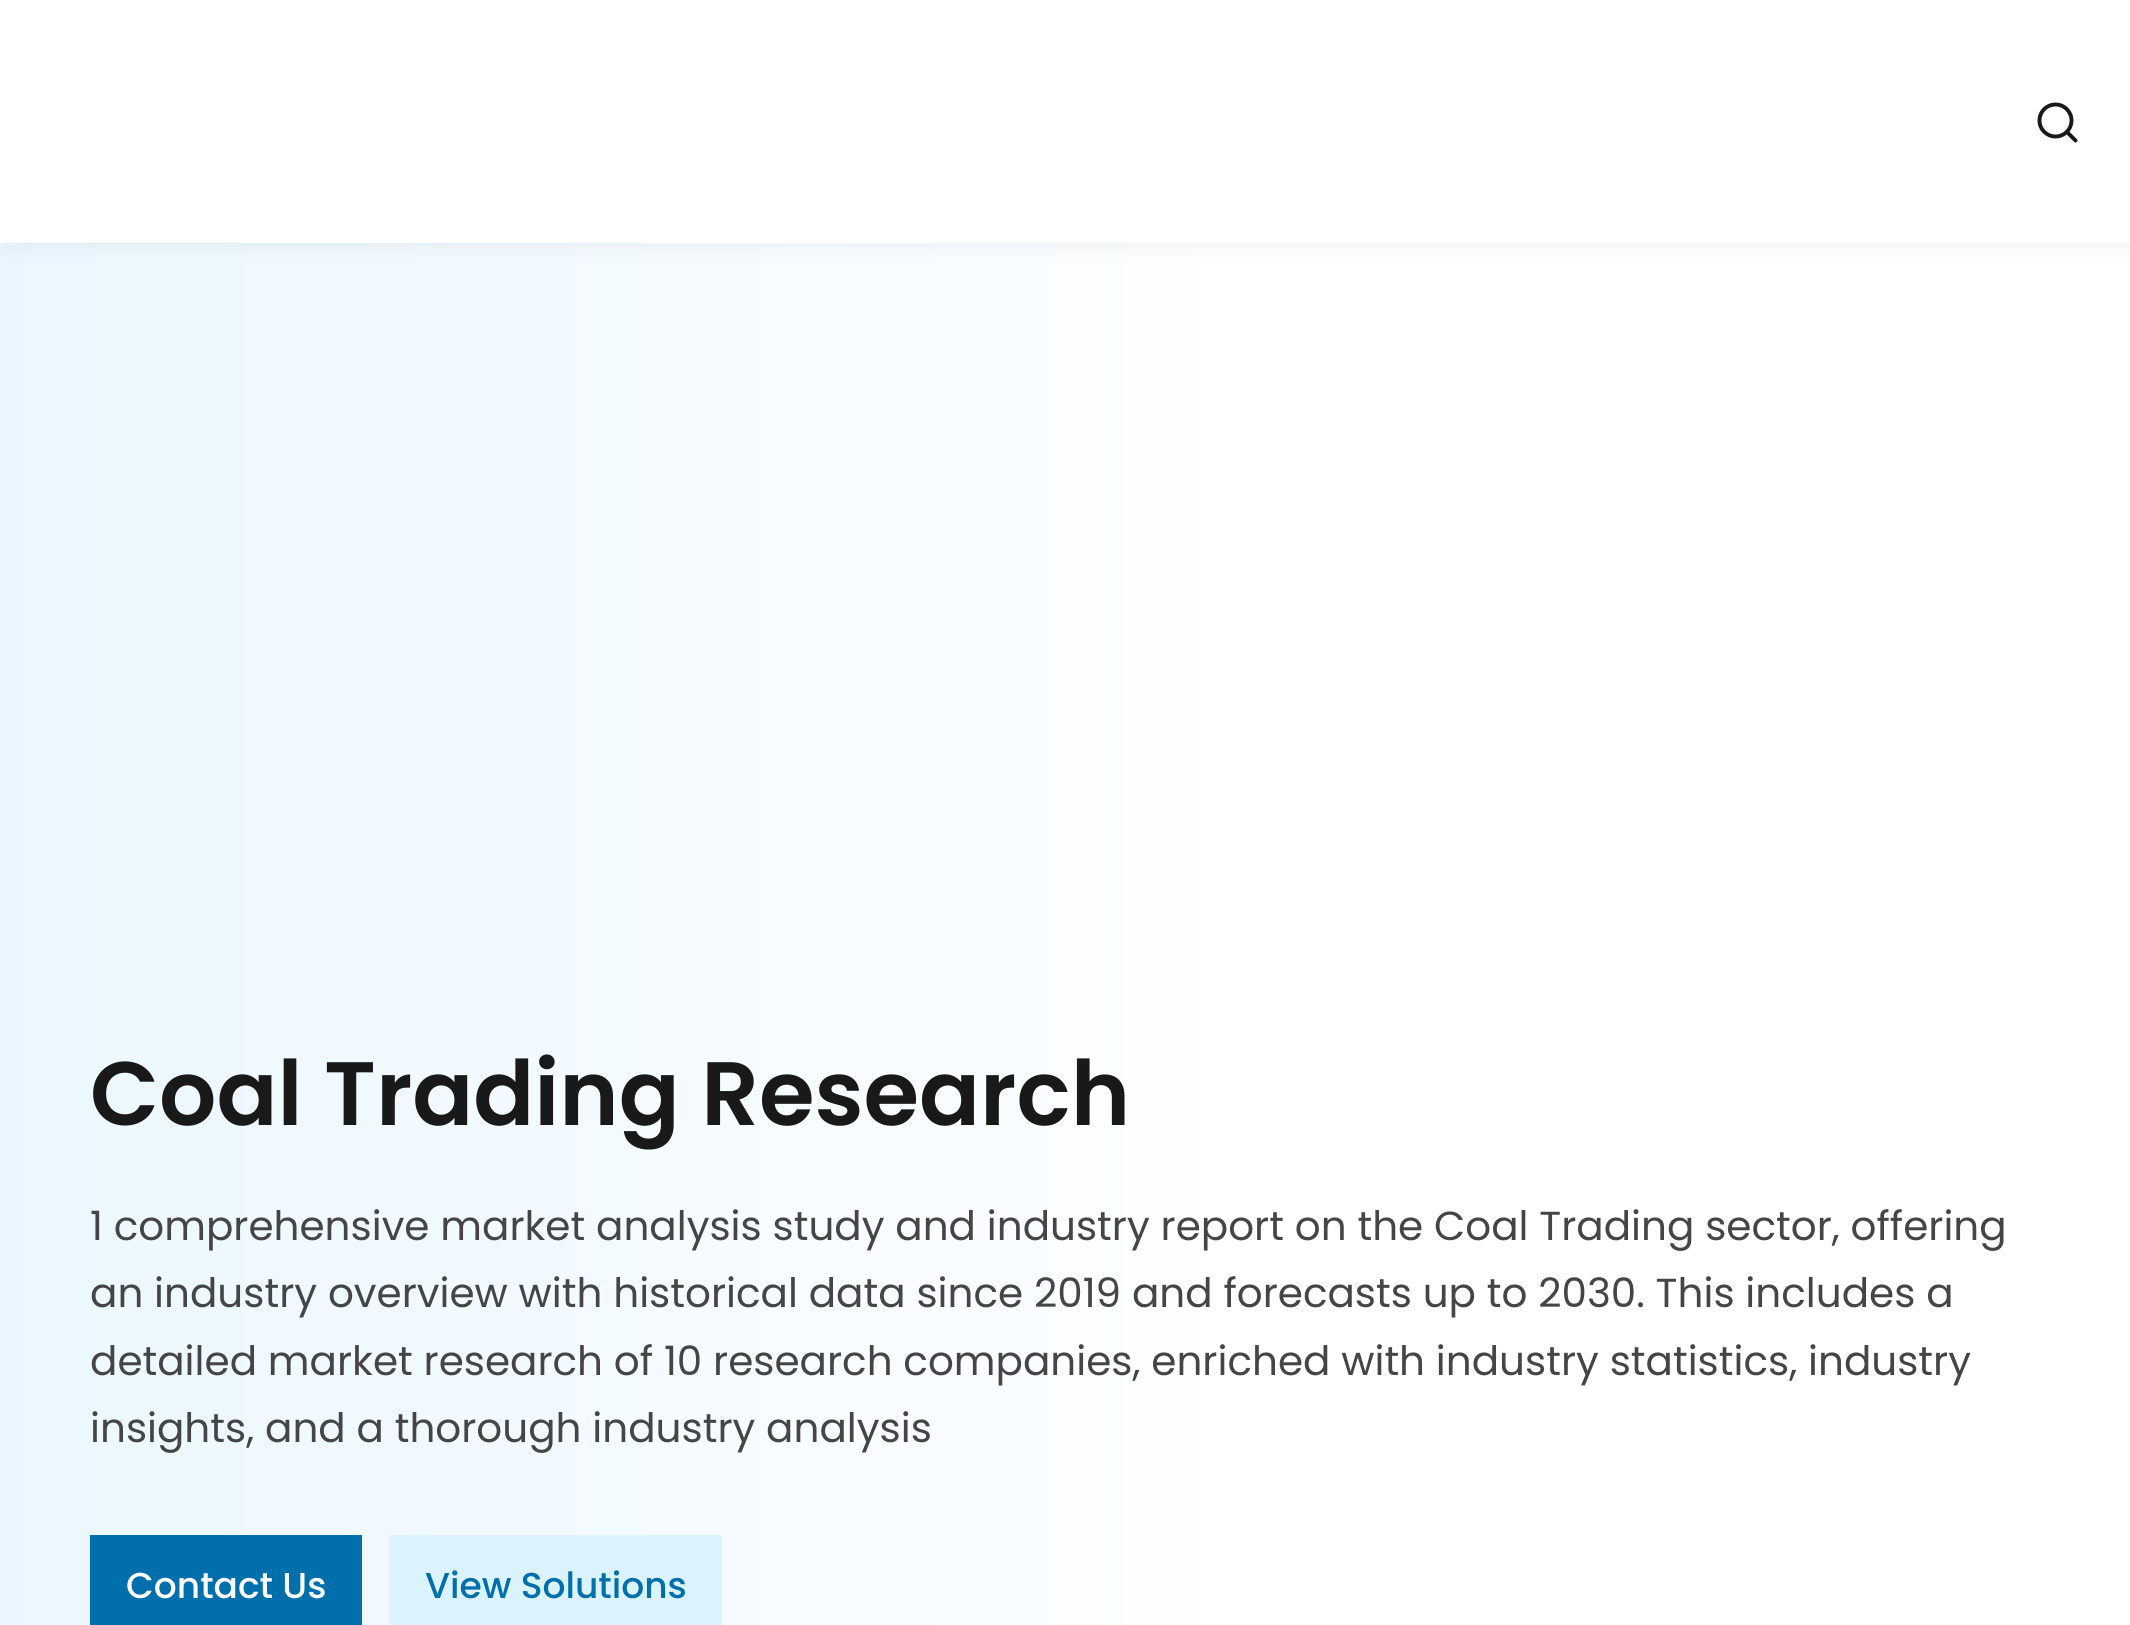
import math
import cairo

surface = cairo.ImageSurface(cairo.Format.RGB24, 2130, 1625)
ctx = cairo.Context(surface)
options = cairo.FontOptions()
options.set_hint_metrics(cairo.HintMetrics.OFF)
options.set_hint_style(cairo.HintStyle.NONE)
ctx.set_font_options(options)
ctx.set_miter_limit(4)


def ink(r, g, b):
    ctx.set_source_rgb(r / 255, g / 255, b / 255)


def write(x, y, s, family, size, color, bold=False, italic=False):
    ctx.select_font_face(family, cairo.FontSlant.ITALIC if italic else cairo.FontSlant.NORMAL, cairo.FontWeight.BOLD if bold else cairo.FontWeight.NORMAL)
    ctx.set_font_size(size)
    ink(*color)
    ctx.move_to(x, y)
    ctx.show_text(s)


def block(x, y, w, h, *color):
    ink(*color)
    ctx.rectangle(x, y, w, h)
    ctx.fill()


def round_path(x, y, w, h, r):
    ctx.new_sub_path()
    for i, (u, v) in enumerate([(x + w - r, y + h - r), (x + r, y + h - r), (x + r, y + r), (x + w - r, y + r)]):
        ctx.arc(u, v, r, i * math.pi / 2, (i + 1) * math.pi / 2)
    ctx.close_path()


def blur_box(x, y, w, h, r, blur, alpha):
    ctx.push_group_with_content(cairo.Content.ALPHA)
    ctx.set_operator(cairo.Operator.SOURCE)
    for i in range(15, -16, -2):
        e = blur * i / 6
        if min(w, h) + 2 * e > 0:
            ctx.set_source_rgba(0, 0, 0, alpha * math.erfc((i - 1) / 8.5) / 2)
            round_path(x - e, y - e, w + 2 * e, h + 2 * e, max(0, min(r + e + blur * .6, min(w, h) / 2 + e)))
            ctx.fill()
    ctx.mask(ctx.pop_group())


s1 = dict(family="Poppins SemiBold", size=90, color=(25, 25, 25))
s2 = dict(family="Poppins", size=40.5, color=(69, 69, 69))
s3 = dict(family="Poppins Medium", size=36, color=(255, 255, 255))
s4 = dict(family="Poppins Medium", size=36, color=(0, 111, 171))

ink(255, 255, 255)
ctx.paint()
gradient = cairo.LinearGradient(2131, 981, 0, 981)
gradient.add_color_stop_rgba(0.36, 1, 1, 1, 1)
gradient.add_color_stop_rgba(1, 0.922, 0.969, 1, 1)
ctx.set_source(gradient)
ctx.rectangle(0, 243, 1193, 1382)
ctx.fill()
ink(0, 0, 0)
blur_box(5, 5, 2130, 243, 0, 9, 0.05)
block(0, 0, 2130, 243, 255, 255, 255)
ctx.new_path()
ctx.move_to(2075.5, 140.5)
ctx.line_to(2067, 132)
ink(25, 25, 25)
ctx.set_line_width(3.9)
ctx.set_line_cap(cairo.LineCap.ROUND)
ctx.set_line_join(cairo.LineJoin.ROUND)
ctx.stroke()
ctx.arc(2055.5, 120.5, 16, 0, 2 * math.pi)
ctx.set_line_cap(cairo.LineCap.BUTT)
ctx.set_line_join(cairo.LineJoin.MITER)
ctx.stroke()
write(90, 1125, "Coal Trading Research", **s1)
write(90, 1240, "1 comprehensive market analysis study and industry report on the Coal Trading sector, offering", **s2)
write(90, 1307, "an industry overview with historical data since 2019 and forecasts up to 2030. This includes a", **s2)
write(90, 1375, "detailed market research of 10 research companies, enriched with industry statistics, industry", **s2)
write(90, 1442, "insights, and a thorough industry analysis", **s2)
block(90, 1535, 272, 90, 0, 111, 171)
write(126, 1598, "Contact Us", **s3)
block(389, 1535, 333, 90, 219, 243, 255)
write(425, 1598, "View Solutions", **s4)
surface.write_to_png("screenshot.png")
